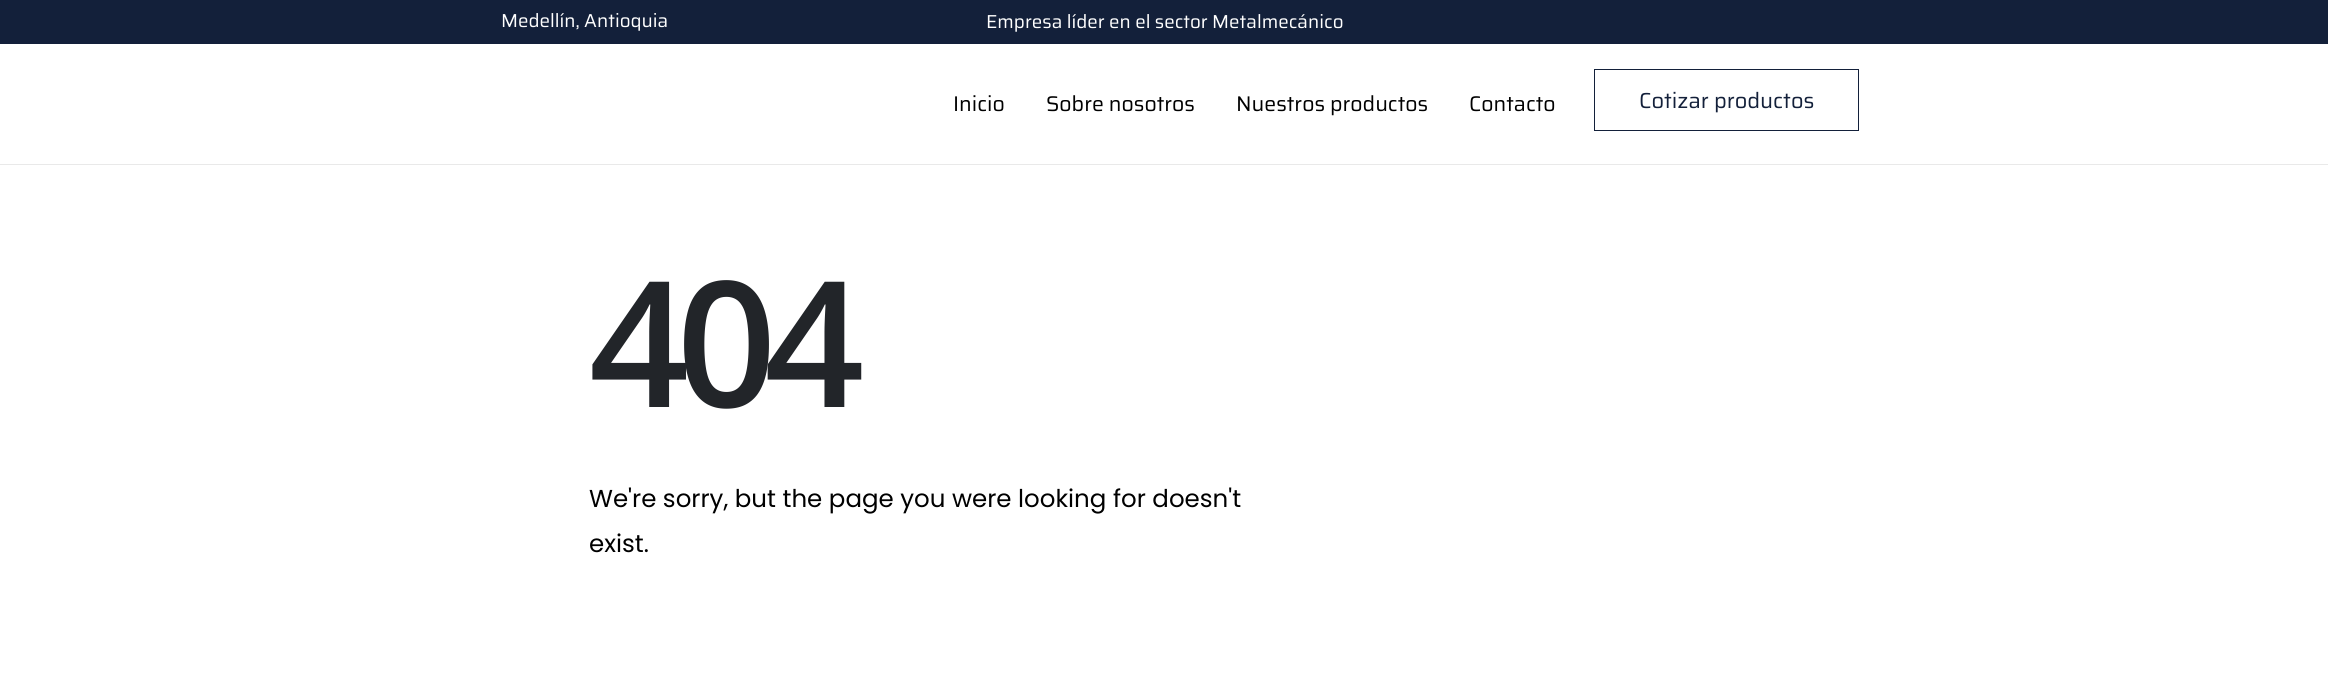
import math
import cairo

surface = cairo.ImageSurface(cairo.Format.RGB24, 2328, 691)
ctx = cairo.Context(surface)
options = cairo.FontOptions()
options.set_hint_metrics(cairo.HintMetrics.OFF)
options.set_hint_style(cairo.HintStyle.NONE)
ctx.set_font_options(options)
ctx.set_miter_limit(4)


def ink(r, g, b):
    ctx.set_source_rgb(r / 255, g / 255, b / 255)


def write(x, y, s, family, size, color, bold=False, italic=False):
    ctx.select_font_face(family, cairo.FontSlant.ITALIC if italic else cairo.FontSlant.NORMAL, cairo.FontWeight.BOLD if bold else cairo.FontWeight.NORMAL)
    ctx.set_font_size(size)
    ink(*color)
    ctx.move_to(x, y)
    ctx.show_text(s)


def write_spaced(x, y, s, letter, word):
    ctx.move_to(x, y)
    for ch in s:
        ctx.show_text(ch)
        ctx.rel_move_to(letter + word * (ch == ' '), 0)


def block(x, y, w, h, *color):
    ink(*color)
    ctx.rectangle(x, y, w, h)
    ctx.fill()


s1 = dict(family="Saira", size=18.75, color=(255, 255, 255))
s2 = dict(family="Saira", size=21.25, color=(0, 0, 0))
s3 = dict(family="Saira", size=21.75, color=(19, 32, 58))
s4 = dict(family="Poppins", size=24.5, color=(0, 0, 0))

ink(255, 255, 255)
ctx.paint()
block(0, 0, 2328, 44, 19, 32, 58)
write(501, 27, "Medellín, Antioquia", **s1)
write(986, 28, "Empresa líder en el sector Metalmecánico", **s1)
block(0, 164, 2328, 1, 233, 233, 233)
write(953, 111, "Inicio", **s2)
write(1046, 111, "Sobre nosotros", **s2)
write(1236, 111, "Nuestros productos", **s2)
write(1469, 111, "Contacto", **s2)
ctx.rectangle(1594.5, 69.5, 264, 61)
ink(19, 32, 58)
ctx.set_line_width(1)
ctx.stroke()
write(1639, 108, "Cotizar productos", **s3)
ctx.select_font_face("Open Sans SemiBold")
ctx.set_font_size(175)
ink(34, 37, 41)
write_spaced(589, 407, "404", -12.5, 0)
write(589, 507, "We're sorry, but the page you were looking for doesn't", **s4)
write(589, 552, "exist.", **s4)
surface.write_to_png("screenshot.png")
